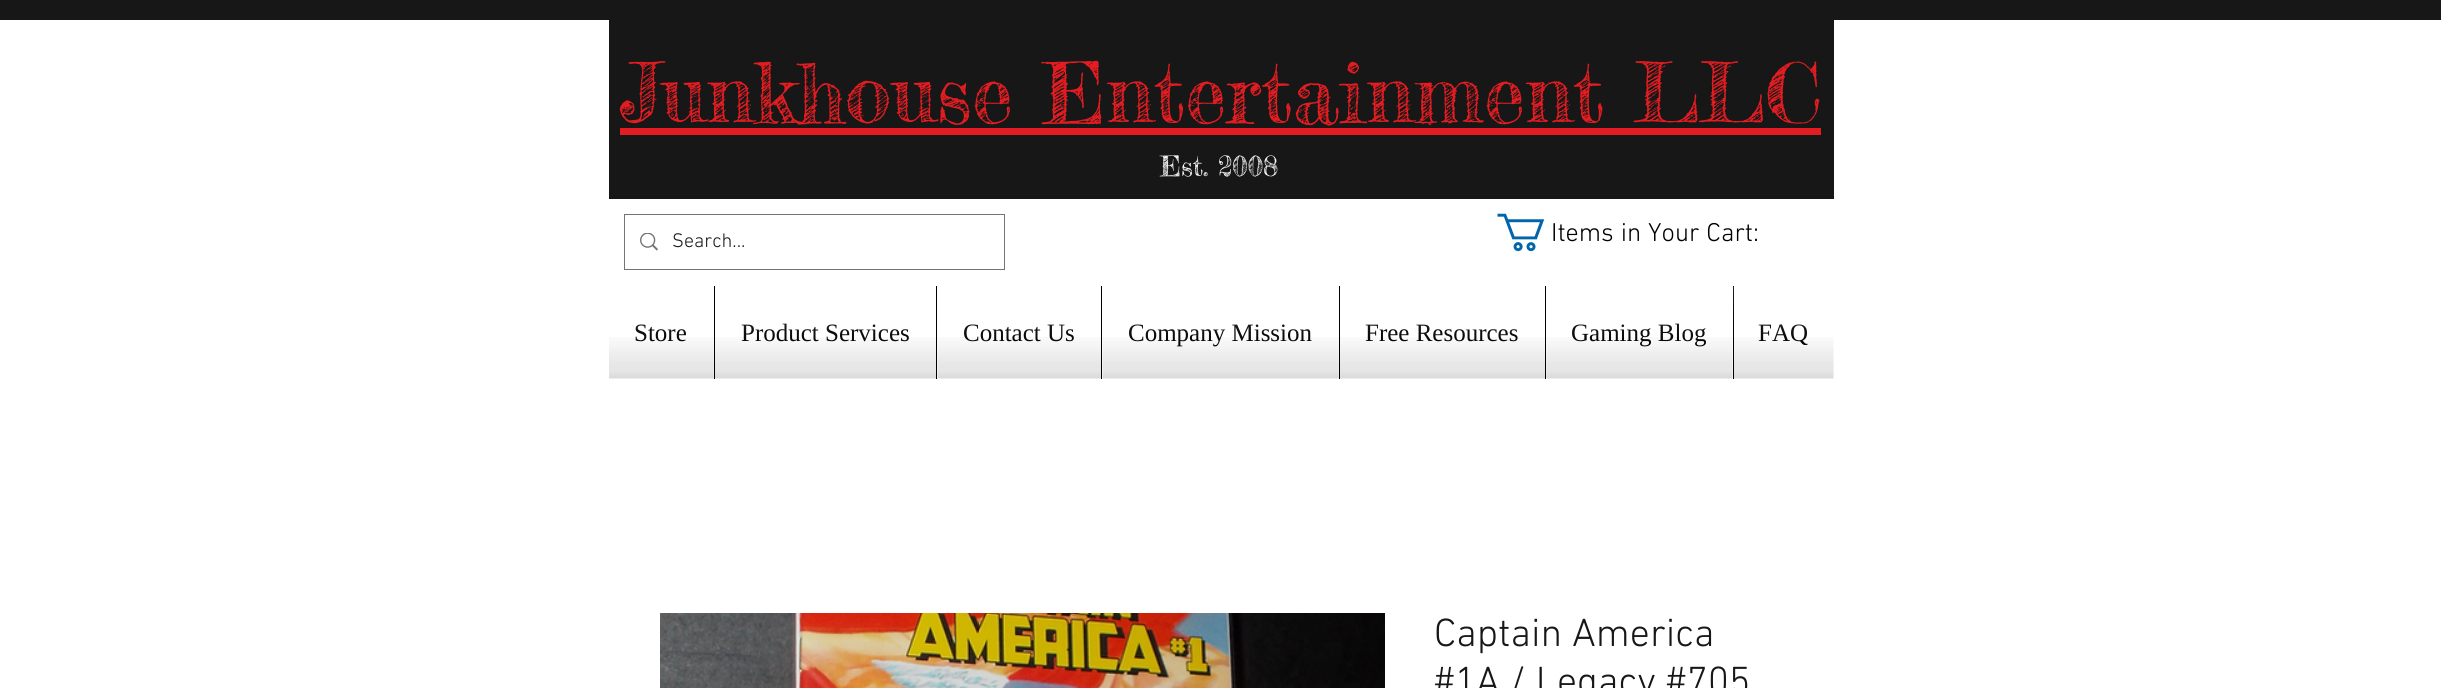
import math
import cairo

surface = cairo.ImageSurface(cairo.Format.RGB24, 2441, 688)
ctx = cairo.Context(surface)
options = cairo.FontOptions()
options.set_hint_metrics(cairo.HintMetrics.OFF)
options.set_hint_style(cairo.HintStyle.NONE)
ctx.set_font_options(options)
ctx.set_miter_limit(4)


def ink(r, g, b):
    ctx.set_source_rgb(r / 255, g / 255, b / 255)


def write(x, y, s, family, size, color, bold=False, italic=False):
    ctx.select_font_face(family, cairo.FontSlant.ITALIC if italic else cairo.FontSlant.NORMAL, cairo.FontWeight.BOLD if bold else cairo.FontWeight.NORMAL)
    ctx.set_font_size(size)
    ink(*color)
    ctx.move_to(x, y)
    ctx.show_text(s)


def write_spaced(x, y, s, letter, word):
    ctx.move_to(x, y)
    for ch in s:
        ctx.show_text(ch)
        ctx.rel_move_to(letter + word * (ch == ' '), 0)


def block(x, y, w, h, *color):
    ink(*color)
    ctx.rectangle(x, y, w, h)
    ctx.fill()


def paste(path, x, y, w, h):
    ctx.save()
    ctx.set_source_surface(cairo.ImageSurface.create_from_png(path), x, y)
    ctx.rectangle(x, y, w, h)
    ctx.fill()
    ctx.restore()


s1 = dict(family="Fredericka the Great", size=82.5, color=(226, 28, 33))
s2 = dict(family="Fredericka the Great", size=27.5, color=(255, 255, 254))
s3 = dict(family="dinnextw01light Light", size=20, color=(23, 23, 23))
s4 = dict(family="Liberation Serif", size=25, color=(0, 0, 0))
s5 = dict(family="dinnextw01light Light", size=40, color=(23, 23, 23))

ink(255, 255, 255)
ctx.paint()
block(0, 0, 2441, 20, 23, 23, 23)
block(609, 20, 1225, 179, 23, 23, 23)
write(620, 123, "Junkhouse Entertainment LLC", **s1)
block(620, 128, 1201, 7, 226, 28, 33)
write(1160, 176, "Est. 2008", **s2)
ctx.rectangle(624.5, 214.5, 380, 55)
ink(116, 116, 116)
ctx.set_line_width(1)
ctx.stroke()
paste("pic1.png", 640, 233, 18, 18)
write(672, 247, "Search...", **s3)
paste("pic2.png", 1497, 213, 48, 39)
ctx.set_font_size(26.25)
ink(0, 0, 0)
write_spaced(1551, 241, "Items in Your Cart:", 0, 0.5)
write(634, 341, "Store", **s4)
paste("pic3.png", 636, 324, 50, 17)
paste("pic4.png", 609, 337, 105, 42)
block(714, 286, 1, 93, 0, 0, 0)
write(741, 341, "Product Services", **s4)
paste("pic5.png", 741, 323, 167, 18)
paste("pic6.png", 715, 337, 221, 42)
block(936, 286, 1, 93, 0, 0, 0)
write(963, 341, "Contact Us", **s4)
paste("pic7.png", 964, 324, 110, 17)
paste("pic8.png", 937, 337, 164, 42)
block(1101, 286, 1, 93, 0, 0, 0)
write(1128, 341, "Company Mission", **s4)
paste("pic9.png", 1129, 324, 182, 19)
paste("pic10.png", 1102, 337, 237, 42)
block(1339, 286, 1, 93, 0, 0, 0)
write(1365, 341, "Free Resources", **s4)
paste("pic11.png", 1366, 324, 152, 17)
paste("pic12.png", 1340, 337, 205, 42)
block(1545, 286, 1, 93, 0, 0, 0)
write(1571, 341, "Gaming Blog", **s4)
paste("pic13.png", 1572, 323, 134, 20)
paste("pic14.png", 1546, 337, 187, 42)
block(1733, 286, 1, 93, 0, 0, 0)
write(1758, 341, "FAQ", **s4)
paste("pic15.png", 1733, 286, 74, 57)
paste("pic16.png", 1734, 337, 100, 42)
paste("pic17.png", 660, 613, 725, 75)
write(1434, 646, "Captain America", **s5)
write(1434, 694, "#1A / Legacy #705", **s5)
surface.write_to_png("screenshot.png")
